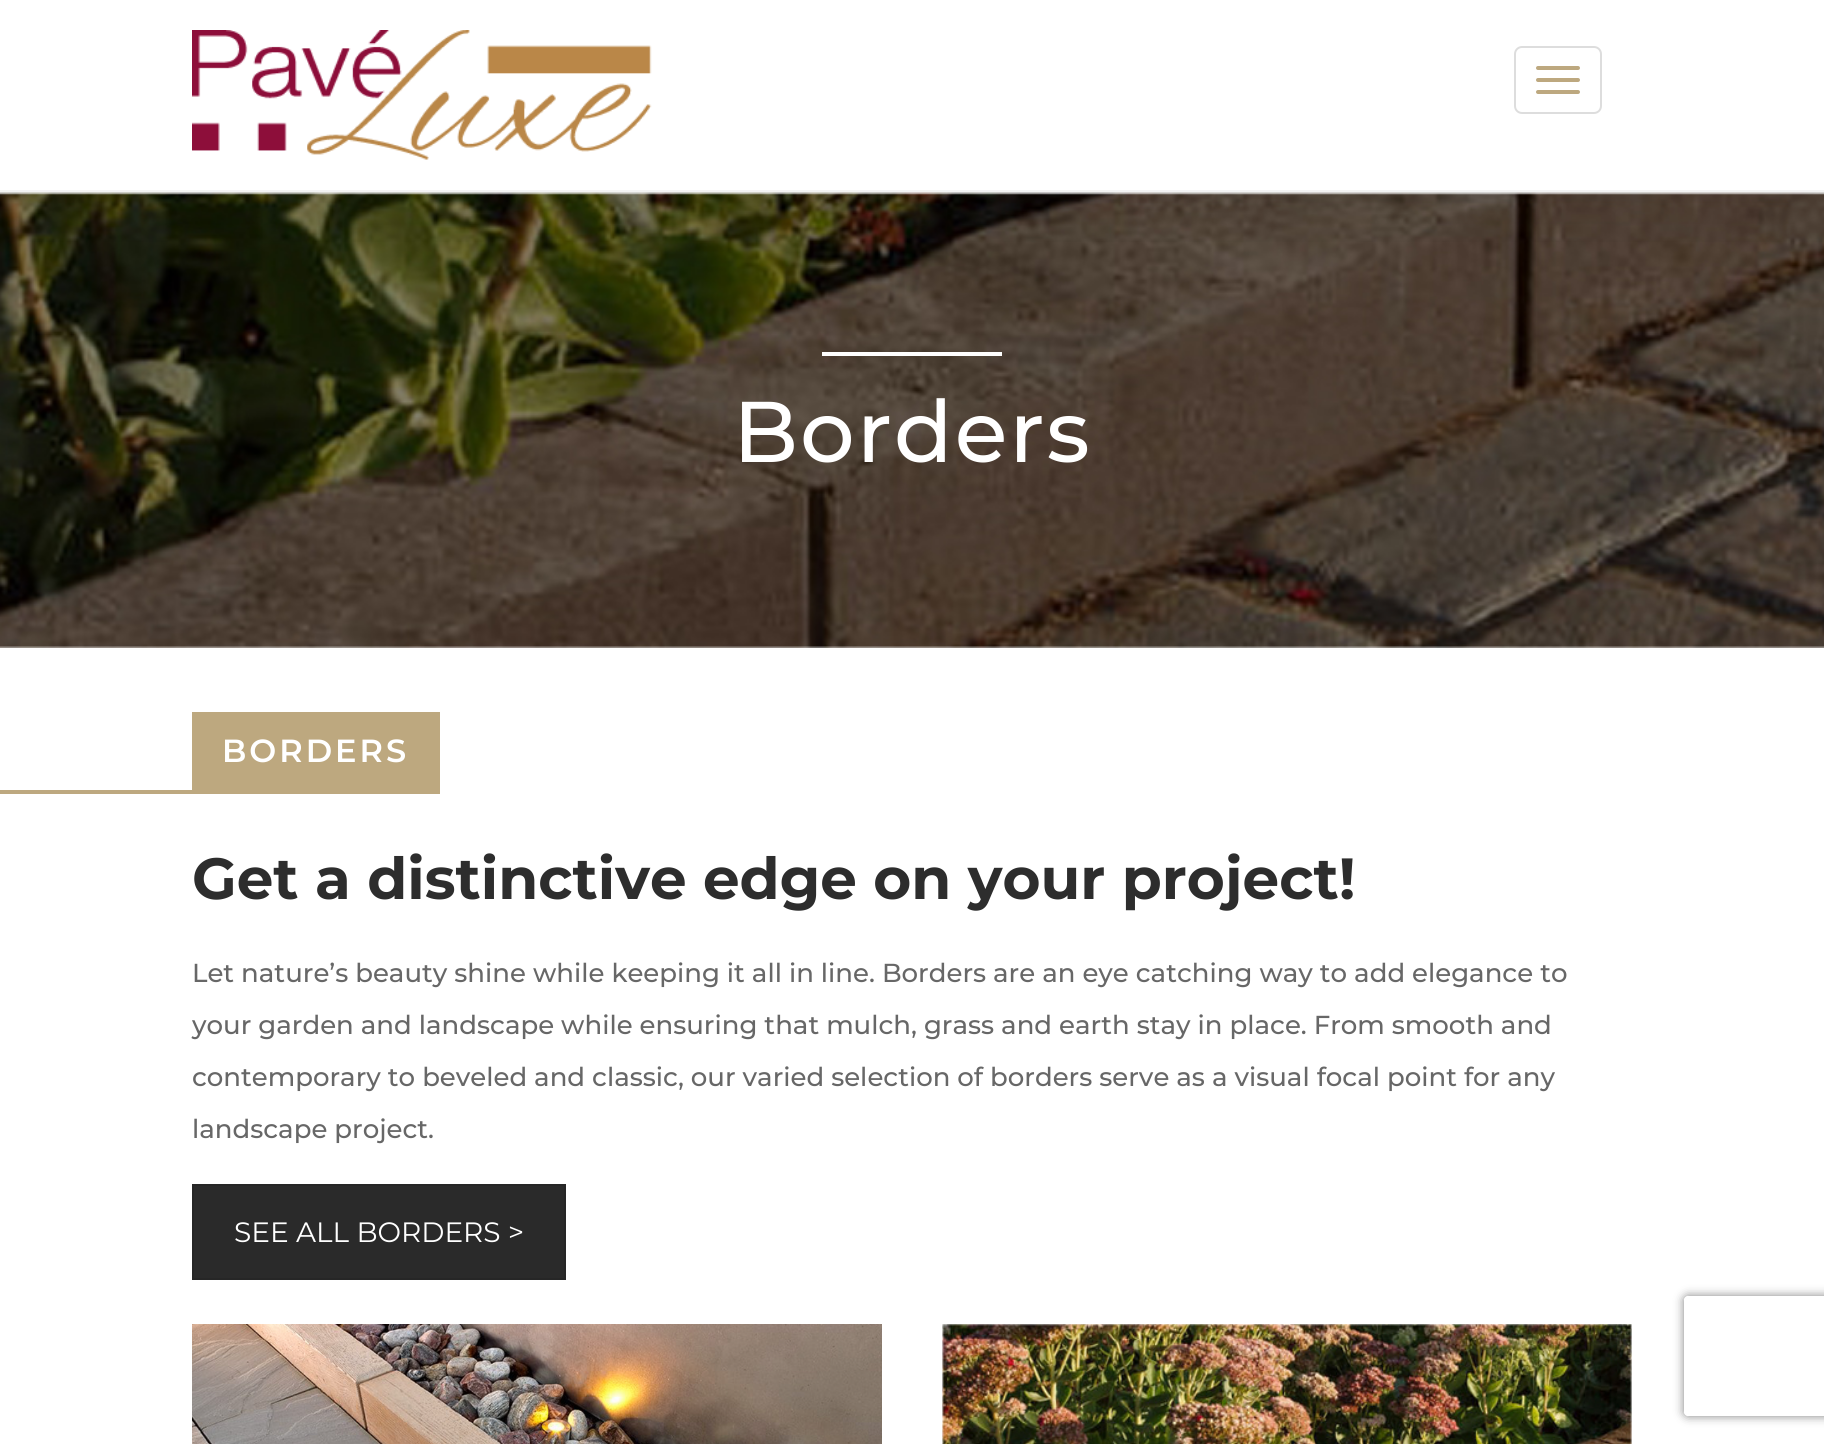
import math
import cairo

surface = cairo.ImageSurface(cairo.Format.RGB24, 1824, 1444)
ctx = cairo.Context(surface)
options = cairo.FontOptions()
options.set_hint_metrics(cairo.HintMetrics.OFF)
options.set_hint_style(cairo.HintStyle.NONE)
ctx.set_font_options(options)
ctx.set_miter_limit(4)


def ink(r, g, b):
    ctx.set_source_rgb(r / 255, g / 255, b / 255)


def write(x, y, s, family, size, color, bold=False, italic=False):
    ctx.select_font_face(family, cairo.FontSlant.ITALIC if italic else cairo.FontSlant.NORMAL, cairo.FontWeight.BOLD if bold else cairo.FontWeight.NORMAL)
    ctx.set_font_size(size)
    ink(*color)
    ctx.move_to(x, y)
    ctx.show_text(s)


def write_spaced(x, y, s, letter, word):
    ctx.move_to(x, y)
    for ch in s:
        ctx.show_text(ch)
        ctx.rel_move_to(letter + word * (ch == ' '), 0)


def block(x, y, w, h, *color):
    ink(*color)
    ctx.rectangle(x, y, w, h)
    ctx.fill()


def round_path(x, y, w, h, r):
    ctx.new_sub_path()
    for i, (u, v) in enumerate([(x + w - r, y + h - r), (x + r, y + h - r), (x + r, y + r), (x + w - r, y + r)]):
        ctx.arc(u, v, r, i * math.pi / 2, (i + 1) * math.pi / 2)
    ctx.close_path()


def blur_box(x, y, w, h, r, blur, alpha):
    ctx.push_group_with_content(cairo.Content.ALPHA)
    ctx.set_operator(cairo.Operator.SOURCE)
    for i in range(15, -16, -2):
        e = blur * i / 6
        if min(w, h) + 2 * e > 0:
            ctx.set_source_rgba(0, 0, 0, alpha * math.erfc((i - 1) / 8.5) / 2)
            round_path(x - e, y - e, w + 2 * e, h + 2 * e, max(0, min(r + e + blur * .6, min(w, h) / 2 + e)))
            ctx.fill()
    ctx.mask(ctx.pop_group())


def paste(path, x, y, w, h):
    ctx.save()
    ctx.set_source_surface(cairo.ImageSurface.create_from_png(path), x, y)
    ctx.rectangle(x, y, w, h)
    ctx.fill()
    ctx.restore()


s1 = dict(family="Montserrat", size=58, color=(45, 45, 45), bold=True)
s2 = dict(family="Montserrat Medium", size=26, color=(103, 103, 103))
s3 = dict(family="Montserrat", size=28, color=(255, 255, 255))

ink(255, 255, 255)
ctx.paint()
paste("pic2.png", 0, 192, 1824, 456)
block(822, 352, 180, 4, 255, 255, 255)
ctx.save()
ctx.rectangle(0, 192, 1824, 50)
ctx.clip()
ink(0, 0, 0)
blur_box(0, 0, 1824, 192, 0, 65, 0.09)
ctx.restore()
block(0, 190, 1824, 2, 243, 243, 243)
paste("pic1.png", 192, 30, 460, 130)
round_path(1515, 47, 86, 66, 7)
ink(221, 221, 221)
ctx.stroke()
ink(189, 168, 127)
round_path(1536, 66, 44, 4, 2)
ctx.fill()
round_path(1536, 78, 44, 4, 2)
ctx.fill()
round_path(1536, 90, 44, 4, 2)
ctx.fill()
ctx.select_font_face("Montserrat Medium")
ctx.set_font_size(86)
ink(255, 255, 255)
write_spaced(733, 462, "Borders", 2, 0)
block(192, 712, 248, 82, 189, 168, 127)
ctx.select_font_face("Montserrat SemiBold")
ctx.set_font_size(32)
ink(255, 255, 255)
write_spaced(222, 762, "BORDERS", 3, 0)
block(0, 790, 192, 4, 189, 168, 127)
write(192, 899, "Get a distinctive edge on your project!", **s1)
write(192, 982, "Let nature’s beauty shine while keeping it all in line. Borders are an eye catching way to add elegance to", **s2)
write(192, 1034, "your garden and landscape while ensuring that mulch, grass and earth stay in place. From smooth and", **s2)
write(192, 1086, "contemporary to beveled and classic, our varied selection of borders serve as a visual focal point for any", **s2)
write(192, 1138, "landscape project.", **s2)
ink(42, 42, 42)
ctx.rectangle(193, 1185, 372, 94)
ctx.fill_preserve()
ink(38, 38, 38)
ctx.stroke()
write(234, 1242, "SEE ALL BORDERS >", **s3)
paste("pic3.png", 192, 1324, 690, 120)
paste("pic4.png", 942, 1324, 690, 120)
ctx.save()
ctx.set_fill_rule(cairo.FillRule.EVEN_ODD)
ctx.new_path()
ctx.move_to(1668, 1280)
ctx.line_to(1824, 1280)
ctx.line_to(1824, 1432)
ctx.line_to(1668, 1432)
ctx.close_path()
ctx.move_to(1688, 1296)
ctx.line_to(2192, 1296)
ctx.curve_to(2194, 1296, 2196, 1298, 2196, 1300)
ctx.line_to(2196, 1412)
ctx.curve_to(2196, 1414, 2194, 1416, 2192, 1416)
ctx.line_to(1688, 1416)
ctx.curve_to(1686, 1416, 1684, 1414, 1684, 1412)
ctx.line_to(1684, 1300)
ctx.curve_to(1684, 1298, 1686, 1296, 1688, 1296)
ctx.close_path()
ctx.clip()
ink(128, 128, 128)
blur_box(1684, 1296, 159, 120, 4, 5, 1)
ctx.restore()
surface.write_to_png("screenshot.png")
